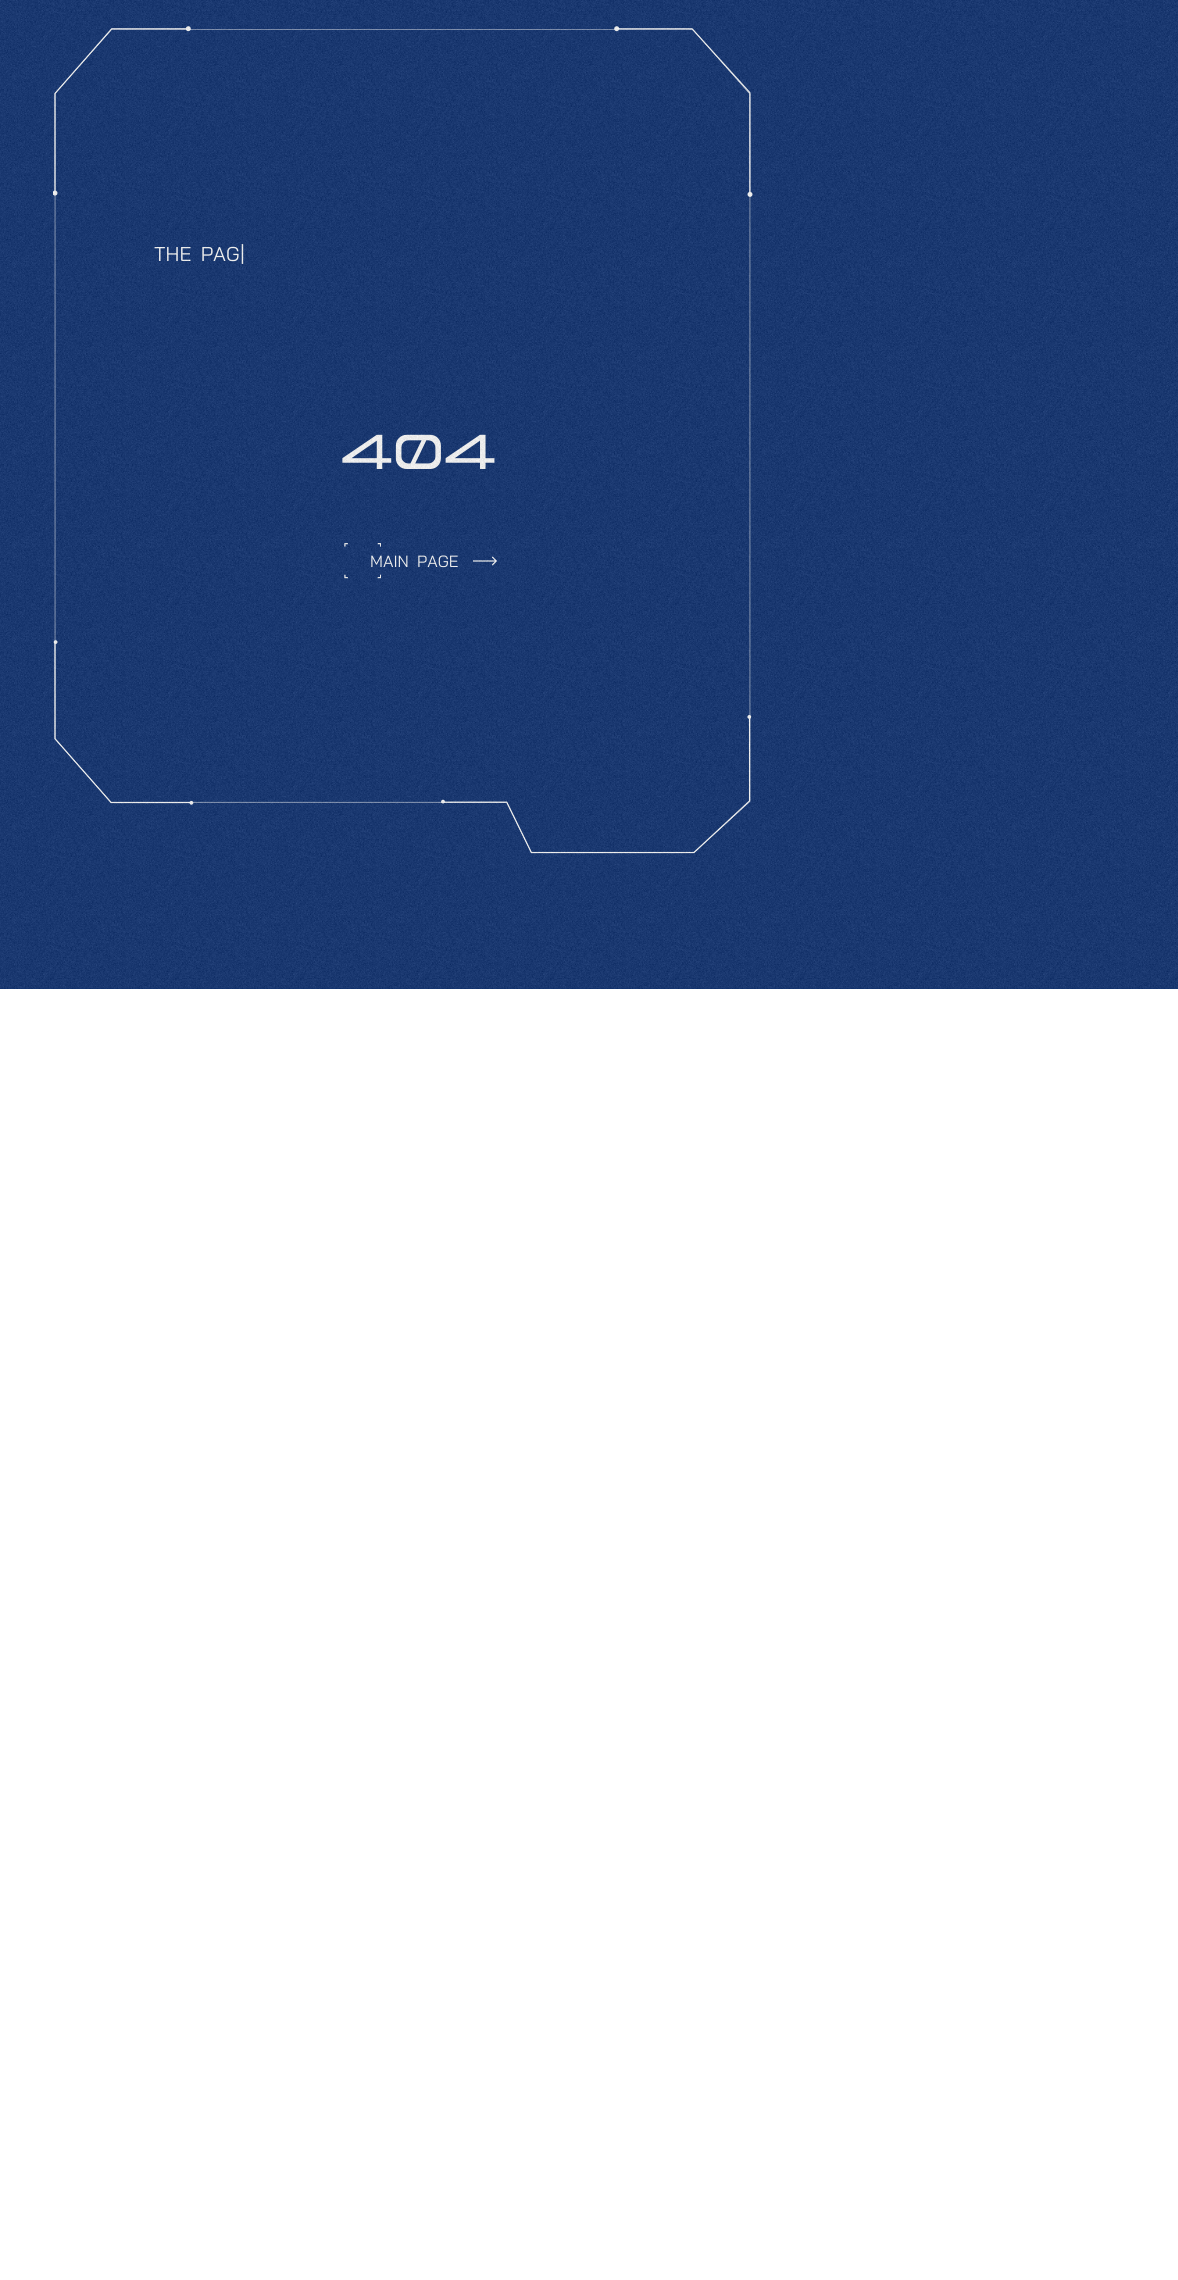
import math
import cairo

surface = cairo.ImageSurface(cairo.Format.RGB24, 1178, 2280)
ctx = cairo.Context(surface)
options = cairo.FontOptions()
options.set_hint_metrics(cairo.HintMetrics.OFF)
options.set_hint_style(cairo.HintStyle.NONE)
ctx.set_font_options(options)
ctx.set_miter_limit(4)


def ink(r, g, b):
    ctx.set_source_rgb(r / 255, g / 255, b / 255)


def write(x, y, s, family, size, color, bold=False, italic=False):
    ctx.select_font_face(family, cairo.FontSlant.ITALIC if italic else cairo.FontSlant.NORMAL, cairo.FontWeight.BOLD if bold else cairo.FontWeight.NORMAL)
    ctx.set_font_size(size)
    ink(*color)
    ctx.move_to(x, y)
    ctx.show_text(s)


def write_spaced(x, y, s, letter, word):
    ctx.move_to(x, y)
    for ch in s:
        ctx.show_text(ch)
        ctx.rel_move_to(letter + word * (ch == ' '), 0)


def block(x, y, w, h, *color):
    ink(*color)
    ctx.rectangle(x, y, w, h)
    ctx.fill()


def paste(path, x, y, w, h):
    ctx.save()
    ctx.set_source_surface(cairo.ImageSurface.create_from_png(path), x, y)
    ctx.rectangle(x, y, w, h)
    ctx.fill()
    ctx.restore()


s1 = dict(family="Bai Jamjuree", size=20, color=(255, 255, 255))
s2 = dict(family="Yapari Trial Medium", size=47.5, color=(255, 255, 255))

ink(255, 255, 255)
ctx.paint()
block(0, 0, 1178, 989, 8, 44, 109)
paste("pic2.png", 53, 26, 700, 828)
ctx.select_font_face("Bai Jamjuree")
ctx.set_font_size(20)
ink(255, 255, 255)
write_spaced(154, 261, "THE PAG", 0, 4)
write(240, 261, "|", **s1)
write(340, 469, "404", **s2)
paste("pic3.png", 344, 543, 37, 36)
ctx.select_font_face("Bai Jamjuree")
ctx.set_font_size(16.25)
write_spaced(370, 567, "MAIN PAGE", 0, 4)
paste("pic4.png", 473, 556, 24, 10)
paste("pic1.png", 0, 0, 1178, 989)
surface.write_to_png("screenshot.png")
